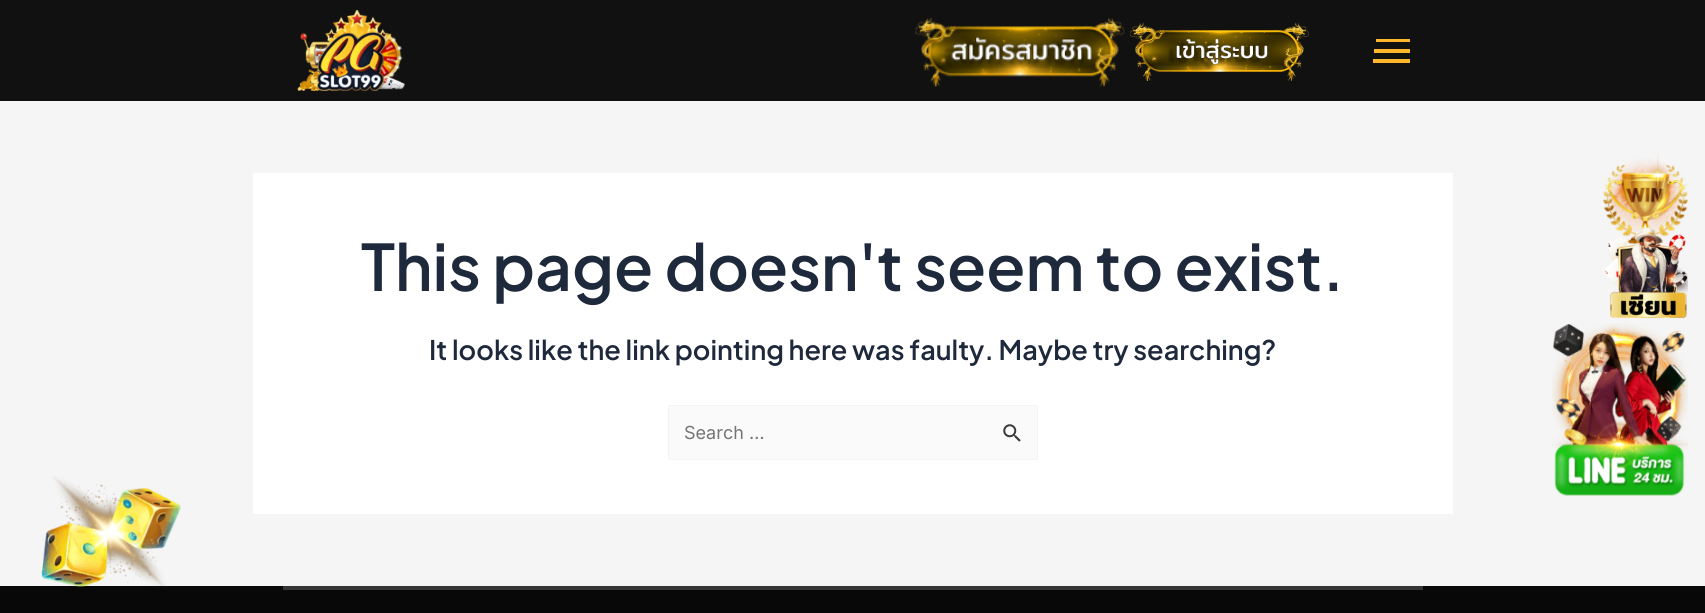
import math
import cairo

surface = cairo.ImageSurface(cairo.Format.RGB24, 1705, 613)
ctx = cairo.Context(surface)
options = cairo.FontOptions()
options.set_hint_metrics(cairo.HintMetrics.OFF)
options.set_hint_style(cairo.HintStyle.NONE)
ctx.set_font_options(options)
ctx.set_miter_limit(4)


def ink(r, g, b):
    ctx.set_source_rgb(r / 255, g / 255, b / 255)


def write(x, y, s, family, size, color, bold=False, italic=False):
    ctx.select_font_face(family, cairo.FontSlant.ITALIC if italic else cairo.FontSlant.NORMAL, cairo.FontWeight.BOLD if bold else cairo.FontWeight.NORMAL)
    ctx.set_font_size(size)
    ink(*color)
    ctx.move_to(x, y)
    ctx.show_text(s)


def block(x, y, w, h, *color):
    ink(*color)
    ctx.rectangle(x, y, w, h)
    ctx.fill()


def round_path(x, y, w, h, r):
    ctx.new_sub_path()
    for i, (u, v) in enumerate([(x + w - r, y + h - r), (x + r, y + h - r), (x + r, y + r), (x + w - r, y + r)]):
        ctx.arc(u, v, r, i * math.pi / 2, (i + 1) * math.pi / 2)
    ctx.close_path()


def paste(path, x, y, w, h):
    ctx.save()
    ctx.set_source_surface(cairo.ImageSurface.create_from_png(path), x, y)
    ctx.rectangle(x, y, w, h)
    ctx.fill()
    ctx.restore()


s1 = dict(family="Plus Jakarta Sans SemiBold", size=64, color=(30, 41, 59))
s2 = dict(family="Plus Jakarta Sans SemiBold", size=27, color=(30, 41, 59))
s3 = dict(family="Inter", size=18, color=(117, 117, 117))

ink(245, 245, 245)
ctx.paint()
block(0, 0, 1705, 101, 17, 17, 17)
paste("pic1.png", 297, 10, 108, 81)
paste("pic2.png", 915, 17, 210, 70)
paste("pic3.png", 1130, 22, 179, 59)
block(1376, 39, 34, 3, 255, 184, 43)
block(1374, 49, 36, 4, 255, 184, 43)
block(1373, 59, 37, 4, 255, 184, 43)
paste("pic4.png", 1602, 153, 86, 92)
paste("pic5.png", 1603, 227, 85, 92)
paste("pic6.png", 1552, 323, 136, 173)
block(253, 173, 1200, 341, 255, 255, 255)
write(361, 291, "This page doesn't seem to exist.", **s1)
write(429, 360, "It looks like the link pointing here was faulty. Maybe try searching?", **s2)
ink(250, 250, 250)
round_path(668.5, 405.5, 369, 54, 1.5)
ctx.fill_preserve()
ink(242, 245, 247)
ctx.set_line_width(1)
ctx.stroke()
write(684, 439, "Search …", **s3)
paste("pic7.png", 1003, 424, 18, 18)
block(0, 586, 1705, 27, 8, 8, 9)
paste("pic8.png", 41, 476, 140, 113)
block(283, 586, 1140, 4, 53, 53, 53)
surface.write_to_png("screenshot.png")
